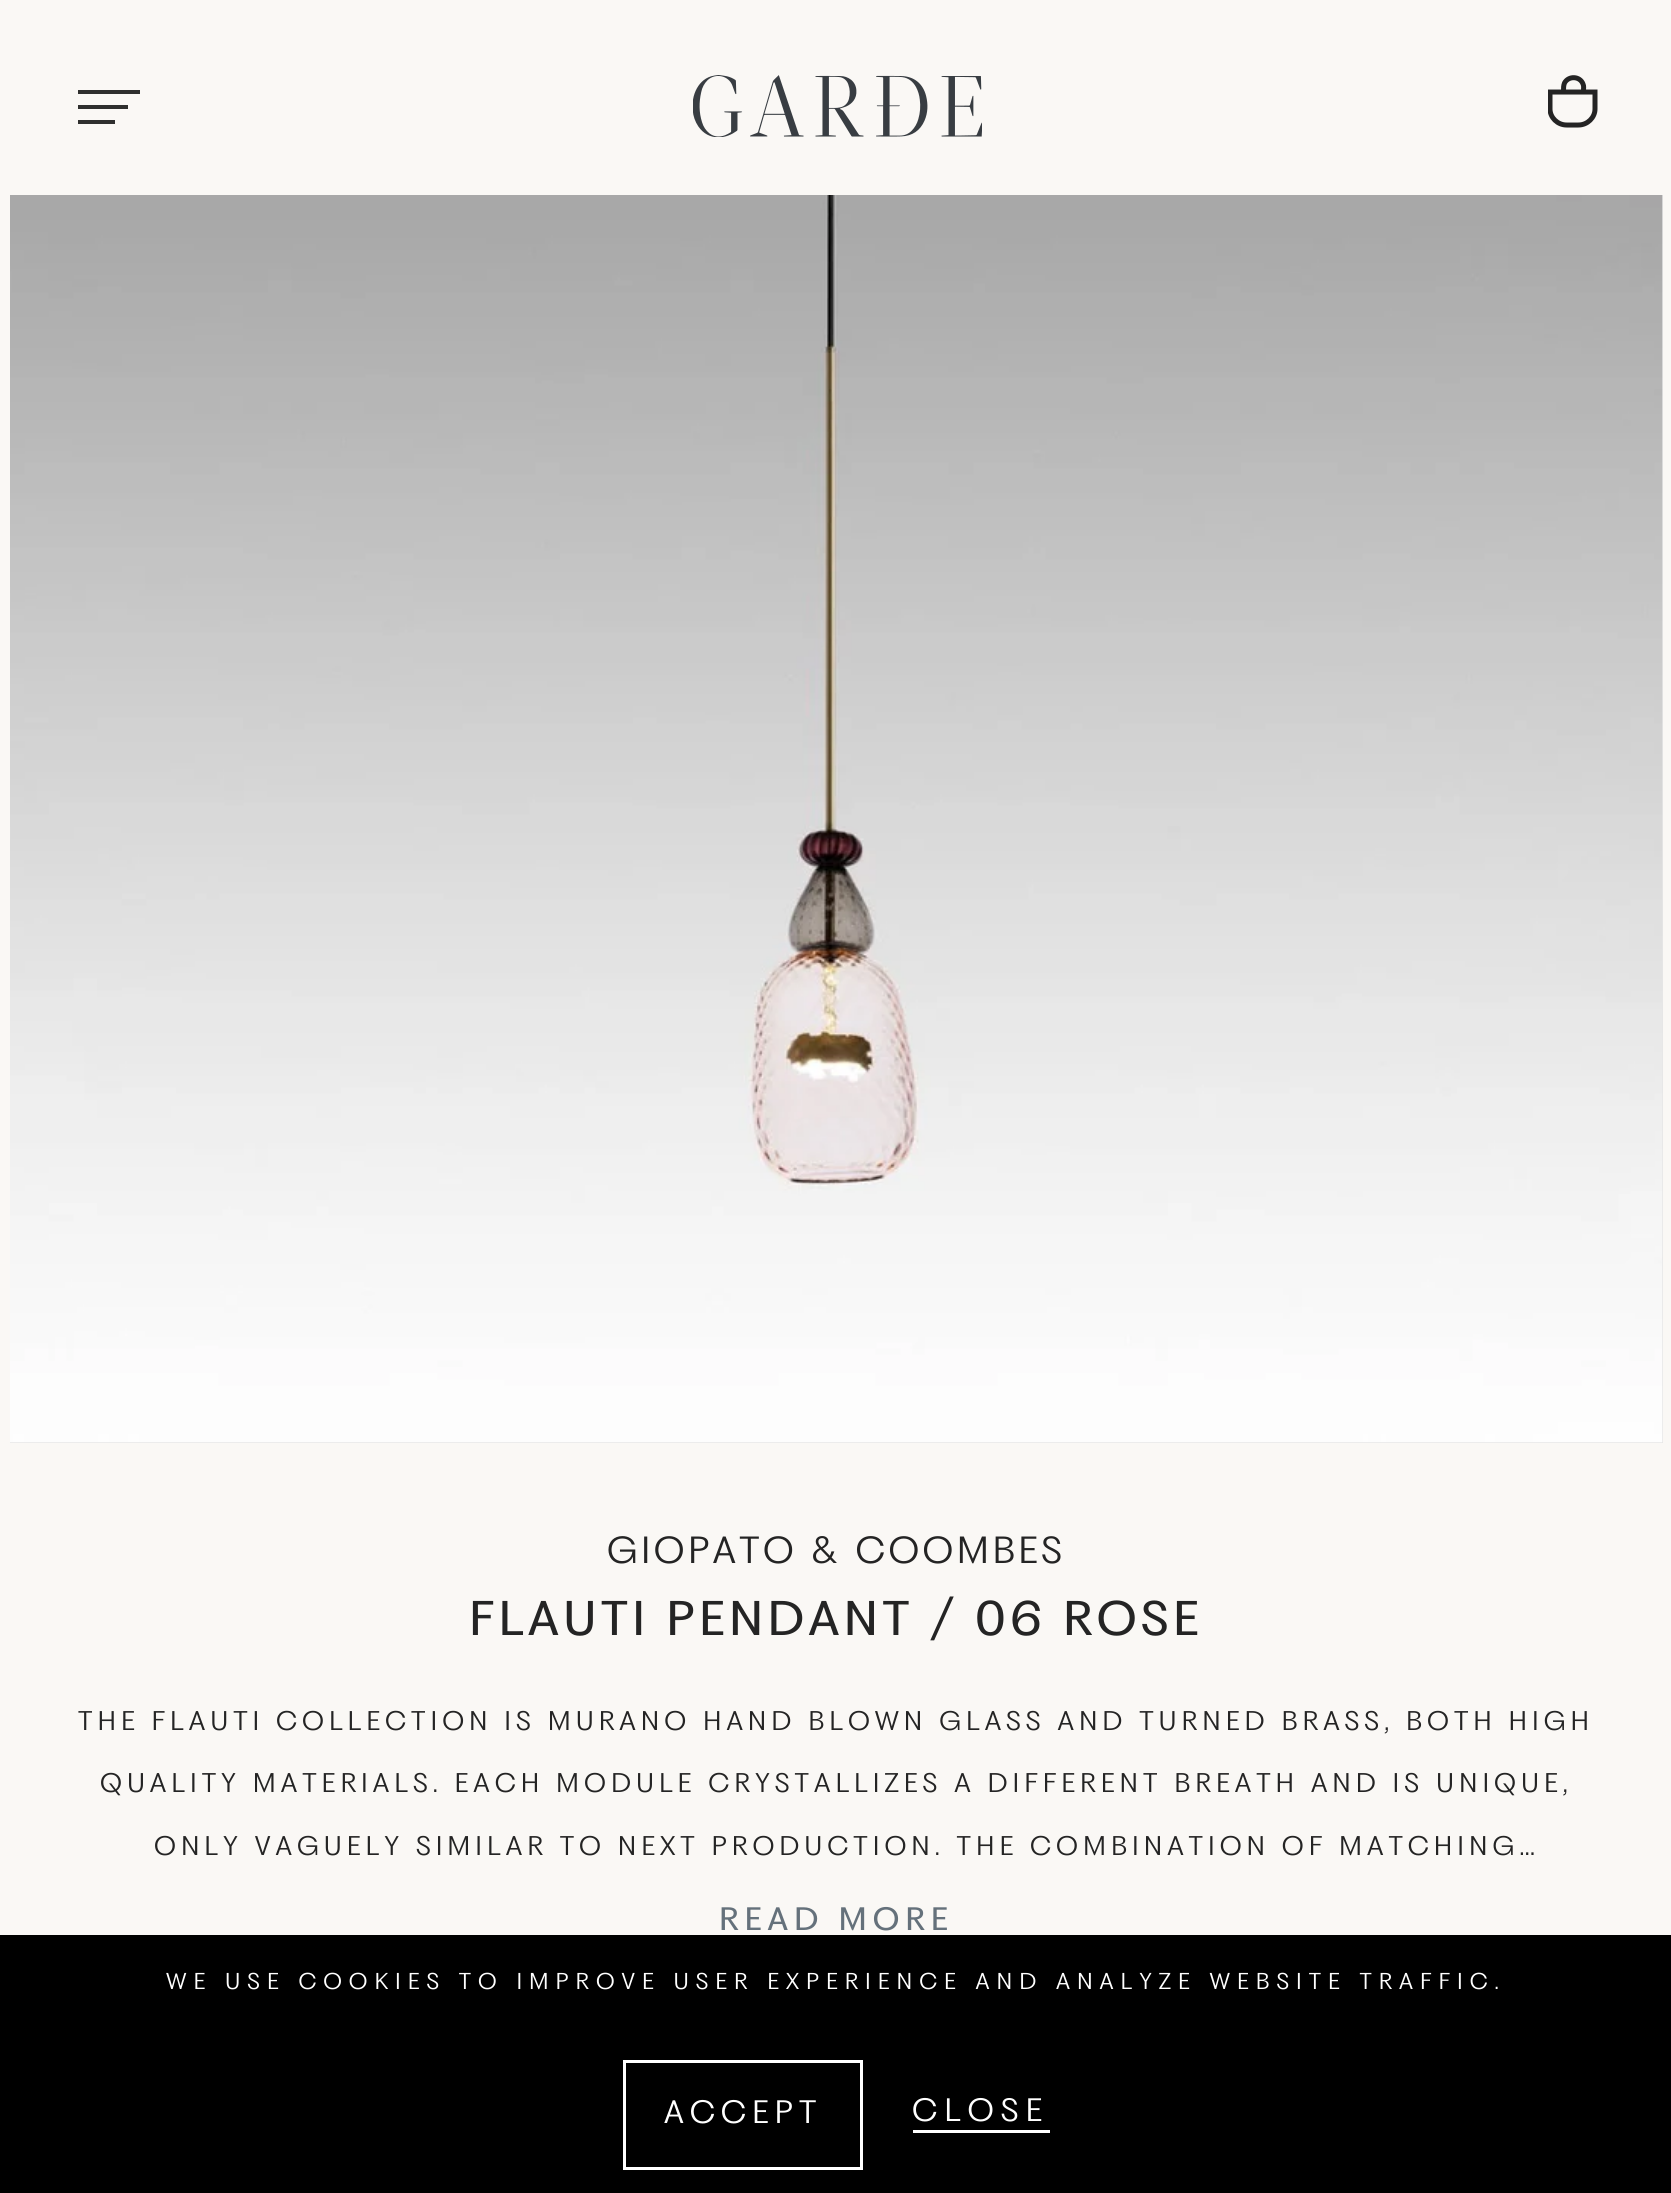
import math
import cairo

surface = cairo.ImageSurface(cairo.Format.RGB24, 1671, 2193)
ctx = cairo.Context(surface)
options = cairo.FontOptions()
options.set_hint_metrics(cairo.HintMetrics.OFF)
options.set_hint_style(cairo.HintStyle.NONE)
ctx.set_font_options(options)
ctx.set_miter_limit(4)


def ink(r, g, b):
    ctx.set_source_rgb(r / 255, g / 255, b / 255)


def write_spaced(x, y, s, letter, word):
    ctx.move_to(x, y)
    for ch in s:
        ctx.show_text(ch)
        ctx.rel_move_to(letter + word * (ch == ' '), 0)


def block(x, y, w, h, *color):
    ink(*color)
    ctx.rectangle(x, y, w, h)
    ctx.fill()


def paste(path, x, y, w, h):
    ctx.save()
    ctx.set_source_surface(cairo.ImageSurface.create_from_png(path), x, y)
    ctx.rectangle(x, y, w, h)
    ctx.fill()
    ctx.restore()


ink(250, 248, 245)
ctx.paint()
block(78, 90, 62, 4, 47, 47, 46)
block(78, 105, 50, 4, 47, 47, 46)
block(78, 120, 37, 4, 47, 47, 46)
paste("pic1.png", 693, 75, 289, 62)
ctx.save()
ctx.rectangle(1548, 75, 50, 53)
ctx.clip()
ctx.new_path()
ctx.move_to(1550, 92)
ctx.line_to(1595, 92)
ctx.line_to(1595, 109)
ctx.curve_to(1595, 117.5, 1587.5, 125, 1578.5, 125)
ctx.line_to(1566.5, 125)
ctx.curve_to(1557.5, 125, 1550, 117.5, 1550, 109)
ctx.close_path()
ink(36, 36, 36)
ctx.set_line_width(5)
ctx.stroke()
ctx.restore()
ctx.new_path()
ctx.move_to(1563.5, 90.5)
ctx.curve_to(1563.5, 88, 1563.5, 85.5, 1564.5, 83)
ctx.curve_to(1568.5, 75.5, 1580, 76, 1583, 84)
ctx.curve_to(1584, 86, 1583.5, 88.5, 1583.5, 90.5)
ink(36, 36, 36)
ctx.set_line_width(5)
ctx.stroke()
block(10, 195, 1653, 1248, 229, 229, 229)
paste("pic2.png", 10, 195, 1653, 1248)
ctx.select_font_face("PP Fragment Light")
ctx.set_font_size(35)
ink(36, 36, 36)
write_spaced(607, 1563, "GIOPATO & COOMBES", 3.5, 0)
ctx.select_font_face("PP Fragment")
ctx.set_font_size(45)
write_spaced(469, 1635, "FLAUTI PENDANT / 06 ROSE", 4.5, 0)
ctx.select_font_face("PP Fragment Light")
ctx.set_font_size(25)
write_spaced(78, 1730, "THE FLAUTI COLLECTION IS MURANO HAND BLOWN GLASS AND TURNED BRASS, BOTH HIGH", 5, 0)
write_spaced(100, 1792, "QUALITY MATERIALS. EACH MODULE CRYSTALLIZES A DIFFERENT BREATH AND IS UNIQUE,", 5, 0)
write_spaced(154, 1855, "ONLY VAGUELY SIMILAR TO NEXT PRODUCTION. THE COMBINATION OF MATCHING…", 5, 0)
ctx.select_font_face("PP Fragment")
ctx.set_font_size(30)
ink(101, 113, 123)
write_spaced(719, 1930, "READ MORE", 6, 0)
block(0, 1935, 1671, 258, 0, 0, 0)
ctx.select_font_face("PP Fragment Light")
ctx.set_font_size(21.25)
ink(255, 255, 255)
write_spaced(166, 1989, "WE USE COOKIES TO IMPROVE USER EXPERIENCE AND ANALYZE WEBSITE TRAFFIC.", 7, 0)
ctx.rectangle(624.5, 2061.5, 237, 107)
ctx.set_line_width(3)
ctx.stroke()
ctx.set_font_size(30)
write_spaced(664, 2123, "ACCEPT", 6, 0)
write_spaced(912, 2121, "CLOSE", 7, 0)
block(913, 2130, 137, 3, 255, 255, 255)
surface.write_to_png("screenshot.png")
